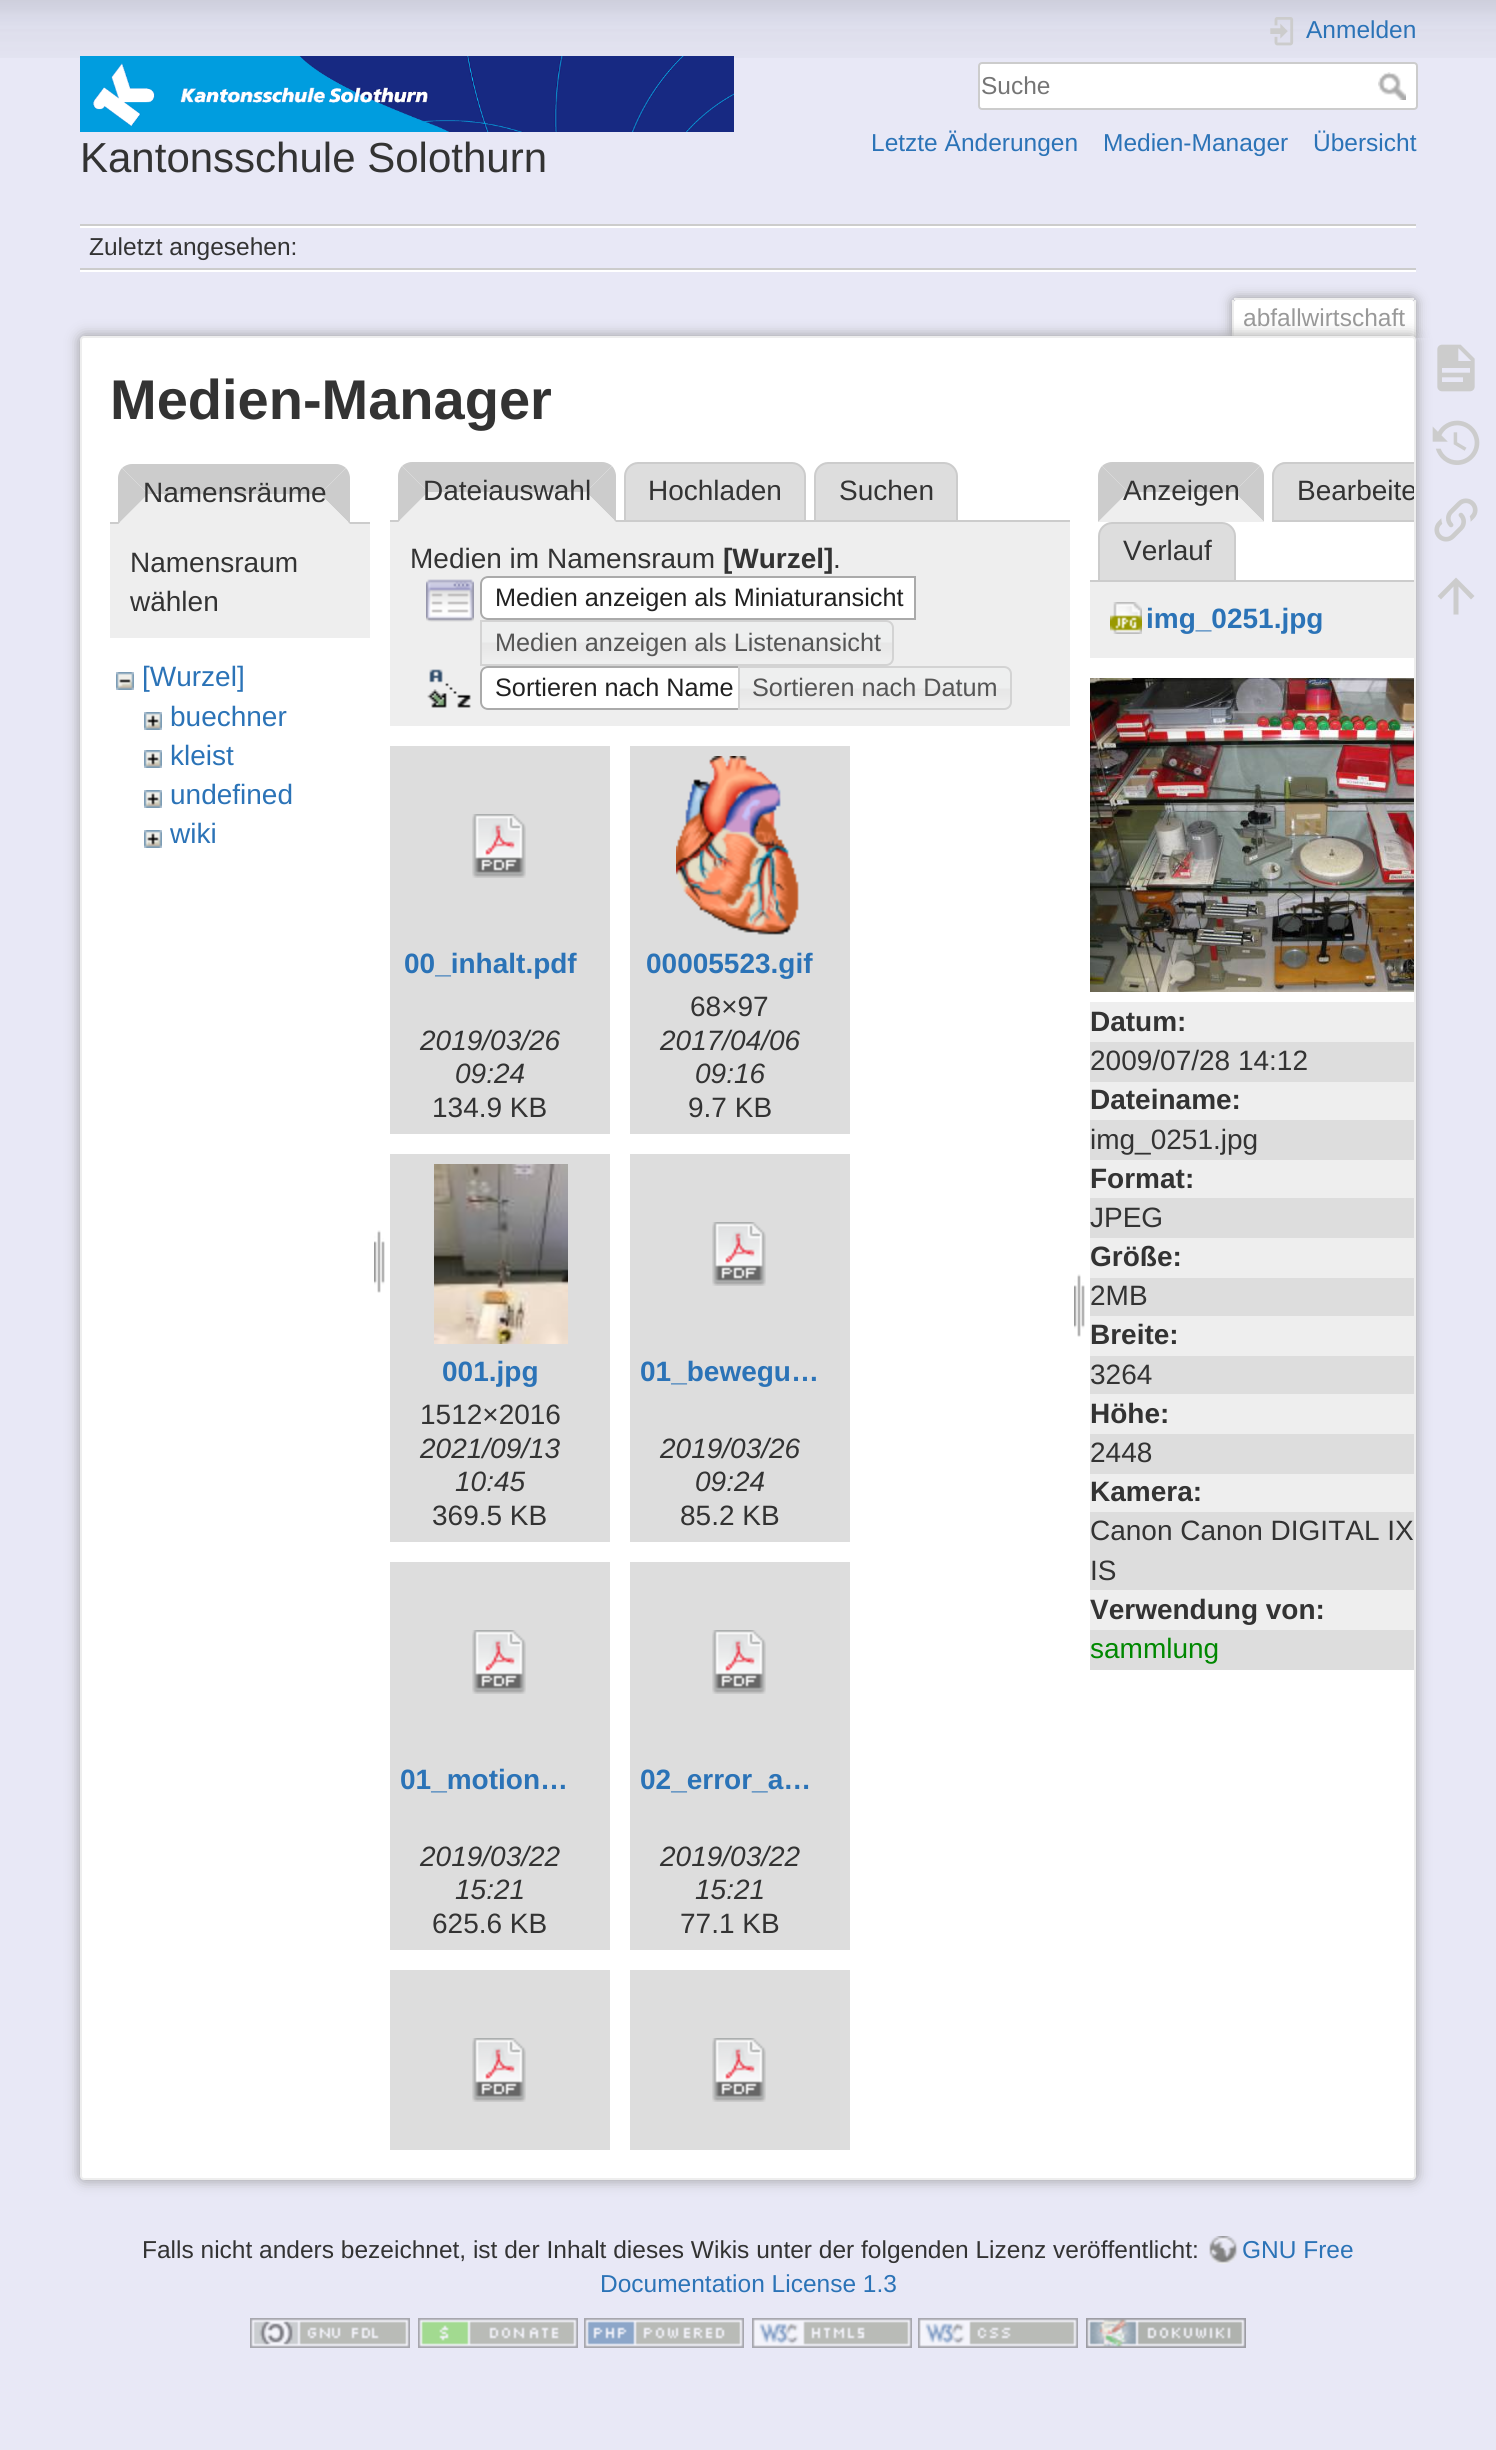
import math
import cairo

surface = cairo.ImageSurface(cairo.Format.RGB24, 1496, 2450)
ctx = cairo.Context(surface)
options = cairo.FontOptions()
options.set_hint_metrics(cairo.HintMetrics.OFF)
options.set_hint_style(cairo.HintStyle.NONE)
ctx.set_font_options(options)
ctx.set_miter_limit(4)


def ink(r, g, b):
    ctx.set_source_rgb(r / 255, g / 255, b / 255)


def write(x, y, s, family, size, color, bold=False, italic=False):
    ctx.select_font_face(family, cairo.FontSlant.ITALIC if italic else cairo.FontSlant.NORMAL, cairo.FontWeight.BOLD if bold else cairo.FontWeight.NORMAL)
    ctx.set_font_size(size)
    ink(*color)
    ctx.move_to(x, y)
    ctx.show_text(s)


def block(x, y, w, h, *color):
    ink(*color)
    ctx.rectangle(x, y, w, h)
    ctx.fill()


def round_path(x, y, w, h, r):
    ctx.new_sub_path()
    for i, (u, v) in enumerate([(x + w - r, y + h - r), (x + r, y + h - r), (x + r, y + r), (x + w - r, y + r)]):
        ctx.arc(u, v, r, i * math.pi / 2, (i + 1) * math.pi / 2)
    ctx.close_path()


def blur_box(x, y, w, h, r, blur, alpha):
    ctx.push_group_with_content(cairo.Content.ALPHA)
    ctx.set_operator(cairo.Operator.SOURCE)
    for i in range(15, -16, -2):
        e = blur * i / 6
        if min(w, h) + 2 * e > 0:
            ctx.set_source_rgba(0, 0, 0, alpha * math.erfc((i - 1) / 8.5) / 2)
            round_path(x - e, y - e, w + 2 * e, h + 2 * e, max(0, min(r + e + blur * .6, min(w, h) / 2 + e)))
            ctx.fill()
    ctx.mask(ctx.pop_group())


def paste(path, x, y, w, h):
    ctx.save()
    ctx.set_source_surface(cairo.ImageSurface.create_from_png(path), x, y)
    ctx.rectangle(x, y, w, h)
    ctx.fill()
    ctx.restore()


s1 = dict(family="Liberation Sans", size=42, color=(51, 51, 51))
s2 = dict(family="Liberation Sans", size=24.5, color=(43, 115, 183))
s3 = dict(family="Liberation Sans", size=24.5, color=(117, 117, 117))
s4 = dict(family="Liberation Sans", size=24.5, color=(51, 51, 51))
s5 = dict(family="Liberation Sans", size=24.5, color=(153, 153, 153))
s6 = dict(family="Liberation Sans", size=56, color=(51, 51, 51), bold=True)
s7 = dict(family="Liberation Sans", size=28, color=(51, 51, 51))
s8 = dict(family="Liberation Sans", size=28, color=(43, 115, 183))
s9 = dict(family="Liberation Sans", size=28, color=(51, 51, 51), bold=True)
s10 = dict(family="Liberation Sans", size=25.25, color=(33, 33, 33))
s11 = dict(family="Liberation Sans", size=25.25, color=(85, 85, 85))
s12 = dict(family="Liberation Sans", size=28, color=(43, 115, 183), bold=True)
s13 = dict(family="Liberation Sans", size=28, color=(51, 51, 51), italic=True)
s14 = dict(family="Liberation Sans", size=28, color=(0, 136, 0))

ink(232, 232, 246)
ctx.paint()
paste("pic1.png", 0, 0, 1496, 58)
paste("pic2.png", 80, 56, 654, 76)
write(80, 172, "Kantonsschule Solothurn", **s1)
paste("pic3.png", 1270, 17, 24, 29)
write(1306, 38, "Anmelden", **s2)
ink(255, 255, 255)
round_path(979, 63, 438, 46, 3)
ctx.fill_preserve()
ink(204, 204, 204)
ctx.stroke()
write(981, 94, "Suche", **s3)
paste("pic4.png", 1378, 72, 28, 28)
write(871, 151, "Letzte Änderungen", **s2)
write(1103, 151, "Medien-Manager", **s2)
write(1313, 151, "Übersicht", **s2)
block(80, 224, 1336, 2, 204, 204, 204)
block(80, 270, 1336, 2, 255, 255, 255)
block(80, 226, 1336, 2, 255, 255, 255)
block(80, 268, 1336, 2, 204, 204, 204)
write(89, 255, "Zuletzt angesehen:", **s4)
ctx.save()
ctx.rectangle(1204, 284, 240, 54)
ctx.clip()
ink(153, 153, 153)
blur_box(1232, 298, 184, 40, 4, 6, 1)
ctx.restore()
ink(255, 255, 255)
ctx.new_path()
ctx.move_to(1236, 300)
ctx.line_to(1412, 300)
ctx.curve_to(1413, 300, 1414, 301, 1414, 302)
ctx.line_to(1414, 338)
ctx.line_to(1234, 338)
ctx.line_to(1234, 302)
ctx.curve_to(1234, 301, 1235, 300, 1236, 300)
ctx.close_path()
ctx.fill()
block(1234, 298, 180, 2, 238, 238, 238)
block(1414, 300, 2, 38, 238, 238, 238)
block(1232, 300, 2, 38, 238, 238, 238)
write(1243, 326, "abfallwirtschaft", **s5)
ink(153, 153, 153)
blur_box(80, 336, 1336, 1844, 4, 7, 1)
ink(255, 255, 255)
round_path(81, 337, 1334, 1842, 3)
ctx.fill_preserve()
ink(238, 238, 238)
ctx.stroke()
write(110, 419, "Medien-Manager", **s6)
ink(204, 204, 204)
ctx.new_path()
ctx.move_to(132, 464)
ctx.line_to(336, 464)
ctx.curve_to(340, 464, 344, 466, 346, 468)
ctx.line_to(320, 494)
ctx.line_to(148, 494)
ctx.line_to(122, 468)
ctx.curve_to(124, 466, 128, 464, 132, 464)
ctx.close_path()
ctx.fill()
block(110, 522, 260, 2, 204, 204, 204)
ctx.new_path()
ctx.move_to(346, 468)
ctx.line_to(320, 494)
ctx.line_to(350, 524)
ctx.line_to(350, 478)
ctx.curve_to(350, 474, 348, 470, 346, 468)
ctx.close_path()
ctx.fill()
ink(238, 238, 238)
ctx.new_path()
ctx.move_to(350, 524)
ctx.line_to(320, 494)
ctx.line_to(148, 494)
ctx.line_to(118, 524)
ctx.close_path()
ctx.fill()
ink(204, 204, 204)
ctx.new_path()
ctx.move_to(118, 524)
ctx.line_to(118, 478)
ctx.curve_to(118, 474, 120, 470, 122, 468)
ctx.line_to(148, 494)
ctx.close_path()
ctx.fill()
write(143, 502, "Namensräume", **s7)
block(110, 524, 260, 114, 238, 238, 238)
write(130, 572, "Namensraum", **s7)
write(130, 611, "wählen", **s7)
paste("pic5.png", 116, 672, 18, 18)
write(142, 686, "[Wurzel]", **s8)
paste("pic6.png", 144, 712, 18, 18)
write(170, 726, "buechner", **s8)
paste("pic6.png", 144, 750, 18, 18)
write(170, 765, "kleist", **s8)
paste("pic6.png", 144, 790, 18, 18)
write(170, 804, "undefined", **s8)
paste("pic6.png", 144, 830, 18, 18)
write(170, 843, "wiki", **s8)
paste("pic7.png", 374, 1230, 11, 63)
ink(204, 204, 204)
ctx.new_path()
ctx.move_to(412, 462)
ctx.line_to(602, 462)
ctx.curve_to(606, 462, 610, 464, 612, 466)
ctx.line_to(586, 492)
ctx.line_to(428, 492)
ctx.line_to(402, 466)
ctx.curve_to(404, 464, 408, 462, 412, 462)
ctx.close_path()
ctx.fill()
ink(221, 221, 221)
ctx.new_path()
ctx.move_to(638, 463)
ctx.line_to(792, 463)
ctx.curve_to(799, 463, 805, 469, 805, 476)
ctx.line_to(805, 521)
ctx.line_to(625, 521)
ctx.line_to(625, 476)
ctx.curve_to(625, 469, 631, 463, 638, 463)
ctx.close_path()
ctx.fill_preserve()
ink(204, 204, 204)
ctx.stroke()
ink(221, 221, 221)
ctx.new_path()
ctx.move_to(828, 463)
ctx.line_to(944, 463)
ctx.curve_to(951, 463, 957, 469, 957, 476)
ctx.line_to(957, 521)
ctx.line_to(815, 521)
ctx.line_to(815, 476)
ctx.curve_to(815, 469, 821, 463, 828, 463)
ctx.close_path()
ctx.fill_preserve()
ink(204, 204, 204)
ctx.stroke()
block(390, 520, 680, 2, 204, 204, 204)
ctx.new_path()
ctx.move_to(612, 466)
ctx.line_to(586, 492)
ctx.line_to(616, 522)
ctx.line_to(616, 476)
ctx.curve_to(616, 472, 614, 468, 612, 466)
ctx.close_path()
ctx.fill()
ink(238, 238, 238)
ctx.new_path()
ctx.move_to(616, 522)
ctx.line_to(586, 492)
ctx.line_to(428, 492)
ctx.line_to(398, 522)
ctx.close_path()
ctx.fill()
ink(204, 204, 204)
ctx.new_path()
ctx.move_to(398, 522)
ctx.line_to(398, 476)
ctx.curve_to(398, 472, 400, 468, 402, 466)
ctx.line_to(428, 492)
ctx.close_path()
ctx.fill()
write(423, 500, "Dateiauswahl", **s7)
write(648, 500, "Hochladen", **s7)
write(839, 500, "Suchen", **s7)
block(390, 522, 680, 204, 238, 238, 238)
write(410, 568, "Medien im Namensraum", **s7)
write(723, 568, "[Wurzel]", **s9)
write(833, 568, ".", **s7)
paste("pic8.png", 426, 579, 48, 43)
ink(255, 255, 255)
ctx.new_path()
ctx.move_to(488, 576)
ctx.line_to(916, 576)
ctx.line_to(916, 620)
ctx.line_to(488, 620)
ctx.curve_to(483.5, 620, 480, 616.5, 480, 612)
ctx.line_to(480, 584)
ctx.curve_to(480, 579.5, 483.5, 576, 488, 576)
ctx.close_path()
ctx.fill()
paste("pic9.png", 480, 576, 6, 44)
ctx.new_path()
ctx.move_to(488, 577)
ctx.line_to(915, 577)
ctx.line_to(915, 619)
ctx.line_to(488, 619)
ctx.curve_to(484, 619, 481, 616, 481, 612)
ctx.line_to(481, 584)
ctx.curve_to(481, 580, 484, 577, 488, 577)
ctx.close_path()
ink(170, 170, 170)
ctx.stroke()
write(495, 606, "Medien anzeigen als Miniaturansicht", **s10)
paste("pic10.png", 482, 620, 412, 46)
ctx.new_path()
ctx.move_to(481, 621)
ctx.line_to(886, 621)
ctx.curve_to(890, 621, 893, 624, 893, 628)
ctx.line_to(893, 658)
ctx.curve_to(893, 662, 890, 665, 886, 665)
ctx.line_to(481, 665)
ctx.close_path()
ink(211, 211, 211)
ctx.stroke()
write(495, 651, "Medien anzeigen als Listenansicht", **s11)
paste("pic11.png", 427, 669, 44, 39)
ink(255, 255, 255)
ctx.new_path()
ctx.move_to(488, 666)
ctx.line_to(748, 666)
ctx.line_to(748, 710)
ctx.line_to(488, 710)
ctx.curve_to(483.5, 710, 480, 706.5, 480, 702)
ctx.line_to(480, 674)
ctx.curve_to(480, 669.5, 483.5, 666, 488, 666)
ctx.close_path()
ctx.fill()
paste("pic9.png", 480, 666, 6, 44)
ctx.new_path()
ctx.move_to(488, 667)
ctx.line_to(747, 667)
ctx.line_to(747, 709)
ctx.line_to(488, 709)
ctx.curve_to(484, 709, 481, 706, 481, 702)
ctx.line_to(481, 674)
ctx.curve_to(481, 670, 484, 667, 488, 667)
ctx.close_path()
ink(170, 170, 170)
ctx.stroke()
write(495, 696, "Sortieren nach Name", **s10)
paste("pic12.png", 740, 666, 272, 44)
ctx.new_path()
ctx.move_to(739, 667)
ctx.line_to(1004, 667)
ctx.curve_to(1008, 667, 1011, 670, 1011, 674)
ctx.line_to(1011, 702)
ctx.curve_to(1011, 706, 1008, 709, 1004, 709)
ctx.line_to(739, 709)
ctx.close_path()
ink(211, 211, 211)
ctx.stroke()
write(752, 696, "Sortieren nach Datum", **s11)
block(390, 746, 220, 388, 221, 221, 221)
paste("pic13.png", 472, 814, 54, 64)
write(404, 973, "00_inhalt.pdf", **s12)
write(420, 1050, "2019/03/26", **s13)
write(455, 1083, "09:24", **s13)
write(432, 1117, "134.9 KB", **s7)
block(630, 746, 220, 388, 221, 221, 221)
paste("pic14.png", 676, 756, 123, 179)
write(646, 973, "00005523.gif", **s12)
write(690, 1016, "68×97", **s7)
write(660, 1050, "2017/04/06", **s13)
write(695, 1083, "09:16", **s13)
write(688, 1117, "9.7 KB", **s7)
block(390, 1154, 220, 388, 221, 221, 221)
paste("pic15.png", 434, 1164, 134, 180)
write(442, 1381, "001.jpg", **s12)
write(420, 1424, "1512×2016", **s7)
write(420, 1458, "2021/09/13", **s13)
write(455, 1491, "10:45", **s13)
write(432, 1525, "369.5 KB", **s7)
block(630, 1154, 220, 388, 221, 221, 221)
paste("pic13.png", 712, 1222, 54, 64)
write(640, 1381, "01_bewegu…", **s12)
write(660, 1458, "2019/03/26", **s13)
write(695, 1491, "09:24", **s13)
write(680, 1525, "85.2 KB", **s7)
block(390, 1562, 220, 388, 221, 221, 221)
paste("pic13.png", 472, 1630, 54, 64)
write(400, 1789, "01_motion…", **s12)
write(420, 1866, "2019/03/22", **s13)
write(455, 1899, "15:21", **s13)
write(432, 1933, "625.6 KB", **s7)
block(630, 1562, 220, 388, 221, 221, 221)
paste("pic13.png", 712, 1630, 54, 64)
write(640, 1789, "02_error_a…", **s12)
write(660, 1866, "2019/03/22", **s13)
write(695, 1899, "15:21", **s13)
write(680, 1933, "77.1 KB", **s7)
block(390, 1970, 220, 180, 221, 221, 221)
paste("pic13.png", 472, 2038, 54, 64)
block(630, 1970, 220, 180, 221, 221, 221)
paste("pic13.png", 712, 2038, 54, 64)
paste("pic7.png", 1074, 1274, 11, 63)
ink(204, 204, 204)
ctx.new_path()
ctx.move_to(1112, 462)
ctx.line_to(1250, 462)
ctx.curve_to(1254, 462, 1258, 464, 1260, 466)
ctx.line_to(1234, 492)
ctx.line_to(1128, 492)
ctx.line_to(1102, 466)
ctx.curve_to(1104, 464, 1108, 462, 1112, 462)
ctx.close_path()
ctx.fill()
ctx.new_path()
ctx.move_to(1260, 466)
ctx.line_to(1234, 492)
ctx.line_to(1264, 522)
ctx.line_to(1264, 476)
ctx.curve_to(1264, 472, 1262, 468, 1260, 466)
ctx.close_path()
ctx.fill()
ink(238, 238, 238)
ctx.new_path()
ctx.move_to(1264, 522)
ctx.line_to(1234, 492)
ctx.line_to(1128, 492)
ctx.line_to(1098, 522)
ctx.close_path()
ctx.fill()
ink(204, 204, 204)
ctx.new_path()
ctx.move_to(1098, 522)
ctx.line_to(1098, 476)
ctx.curve_to(1098, 472, 1100, 468, 1102, 466)
ctx.line_to(1128, 492)
ctx.close_path()
ctx.fill()
write(1123, 500, "Anzeigen", **s7)
ink(221, 221, 221)
ctx.new_path()
ctx.move_to(1286, 462)
ctx.line_to(1414, 462)
ctx.line_to(1414, 522)
ctx.line_to(1272, 522)
ctx.line_to(1272, 476)
ctx.curve_to(1272, 468.5, 1278.5, 462, 1286, 462)
ctx.close_path()
ctx.fill()
ink(204, 204, 204)
ctx.new_path()
ctx.move_to(1286, 462)
ctx.curve_to(1278, 462, 1272, 468, 1272, 476)
ctx.line_to(1272, 522)
ctx.line_to(1414, 522)
ctx.line_to(1414, 520)
ctx.line_to(1274, 520)
ctx.line_to(1274, 476)
ctx.curve_to(1274, 469, 1279, 464, 1286, 464)
ctx.line_to(1414, 464)
ctx.line_to(1414, 462)
ctx.close_path()
ctx.fill()
ctx.save()
round_path(82, 338, 1332, 1840, 2)
ctx.clip()
write(1297, 500, "Bearbeite", **s7)
ctx.restore()
ink(221, 221, 221)
ctx.new_path()
ctx.move_to(1112, 523)
ctx.line_to(1222, 523)
ctx.curve_to(1229, 523, 1235, 529, 1235, 536)
ctx.line_to(1235, 581)
ctx.line_to(1099, 581)
ctx.line_to(1099, 536)
ctx.curve_to(1099, 529, 1105, 523, 1112, 523)
ctx.close_path()
ctx.fill_preserve()
ink(204, 204, 204)
ctx.stroke()
write(1123, 560, "Verlauf", **s7)
block(1090, 580, 324, 2, 204, 204, 204)
block(1090, 582, 324, 76, 238, 238, 238)
paste("pic16.png", 1110, 602, 32, 32)
write(1146, 628, "img_0251.jpg", **s12)
paste("pic17.png", 1090, 678, 324, 314)
block(1090, 1002, 324, 40, 238, 238, 238)
write(1090, 1031, "Datum:", **s9)
block(1090, 1042, 324, 40, 221, 221, 221)
write(1090, 1070, "2009/07/28 14:12", **s7)
block(1090, 1082, 324, 38, 238, 238, 238)
write(1090, 1109, "Dateiname:", **s9)
block(1090, 1120, 324, 40, 221, 221, 221)
write(1090, 1149, "img_0251.jpg", **s7)
block(1090, 1160, 324, 38, 238, 238, 238)
write(1090, 1188, "Format:", **s9)
block(1090, 1198, 324, 40, 221, 221, 221)
write(1090, 1227, "JPEG", **s7)
block(1090, 1238, 324, 40, 238, 238, 238)
write(1090, 1266, "Größe:", **s9)
block(1090, 1278, 324, 38, 221, 221, 221)
write(1090, 1305, "2MB", **s7)
block(1090, 1316, 324, 40, 238, 238, 238)
write(1090, 1344, "Breite:", **s9)
block(1090, 1356, 324, 38, 221, 221, 221)
write(1090, 1384, "3264", **s7)
block(1090, 1394, 324, 40, 238, 238, 238)
write(1090, 1423, "Höhe:", **s9)
block(1090, 1434, 324, 40, 221, 221, 221)
write(1090, 1462, "2448", **s7)
block(1090, 1474, 324, 38, 238, 238, 238)
write(1090, 1501, "Kamera:", **s9)
block(1090, 1512, 324, 78, 221, 221, 221)
write(1090, 1540, "Canon Canon DIGITAL IX", **s7)
write(1090, 1580, "IS", **s7)
block(1090, 1590, 324, 40, 238, 238, 238)
write(1090, 1619, "Verwendung von:", **s9)
block(1090, 1630, 324, 40, 221, 221, 221)
write(1090, 1658, "sammlung", **s14)
paste("pic18.png", 1437, 344, 38, 48)
paste("pic19.png", 1432, 420, 48, 45)
paste("pic20.png", 1434, 498, 44, 44)
ink(204, 204, 204)
ctx.new_path()
ctx.move_to(1458.5, 614.5)
ctx.line_to(1453.5, 614.5)
ctx.line_to(1453.5, 586.5)
ctx.line_to(1441, 599.5)
ctx.line_to(1437.5, 596)
ctx.line_to(1456, 577.5)
ctx.line_to(1474.5, 596)
ctx.line_to(1471, 599.5)
ctx.line_to(1458.5, 586.5)
ctx.close_path()
ctx.fill()
write(142, 2258, "Falls nicht anders bezeichnet, ist der Inhalt dieses Wikis unter der folgenden Lizenz veröffentlicht:", **s4)
paste("pic21.png", 1209, 2236, 29, 28)
write(1242, 2258, "GNU Free", **s2)
write(600, 2292, "Documentation License 1.3", **s2)
paste("pic22.png", 250, 2318, 160, 30)
paste("pic23.png", 418, 2318, 160, 30)
paste("pic24.png", 584, 2318, 160, 30)
paste("pic25.png", 752, 2318, 160, 30)
paste("pic26.png", 918, 2318, 160, 30)
paste("pic27.png", 1086, 2318, 160, 30)
surface.write_to_png("screenshot.png")
